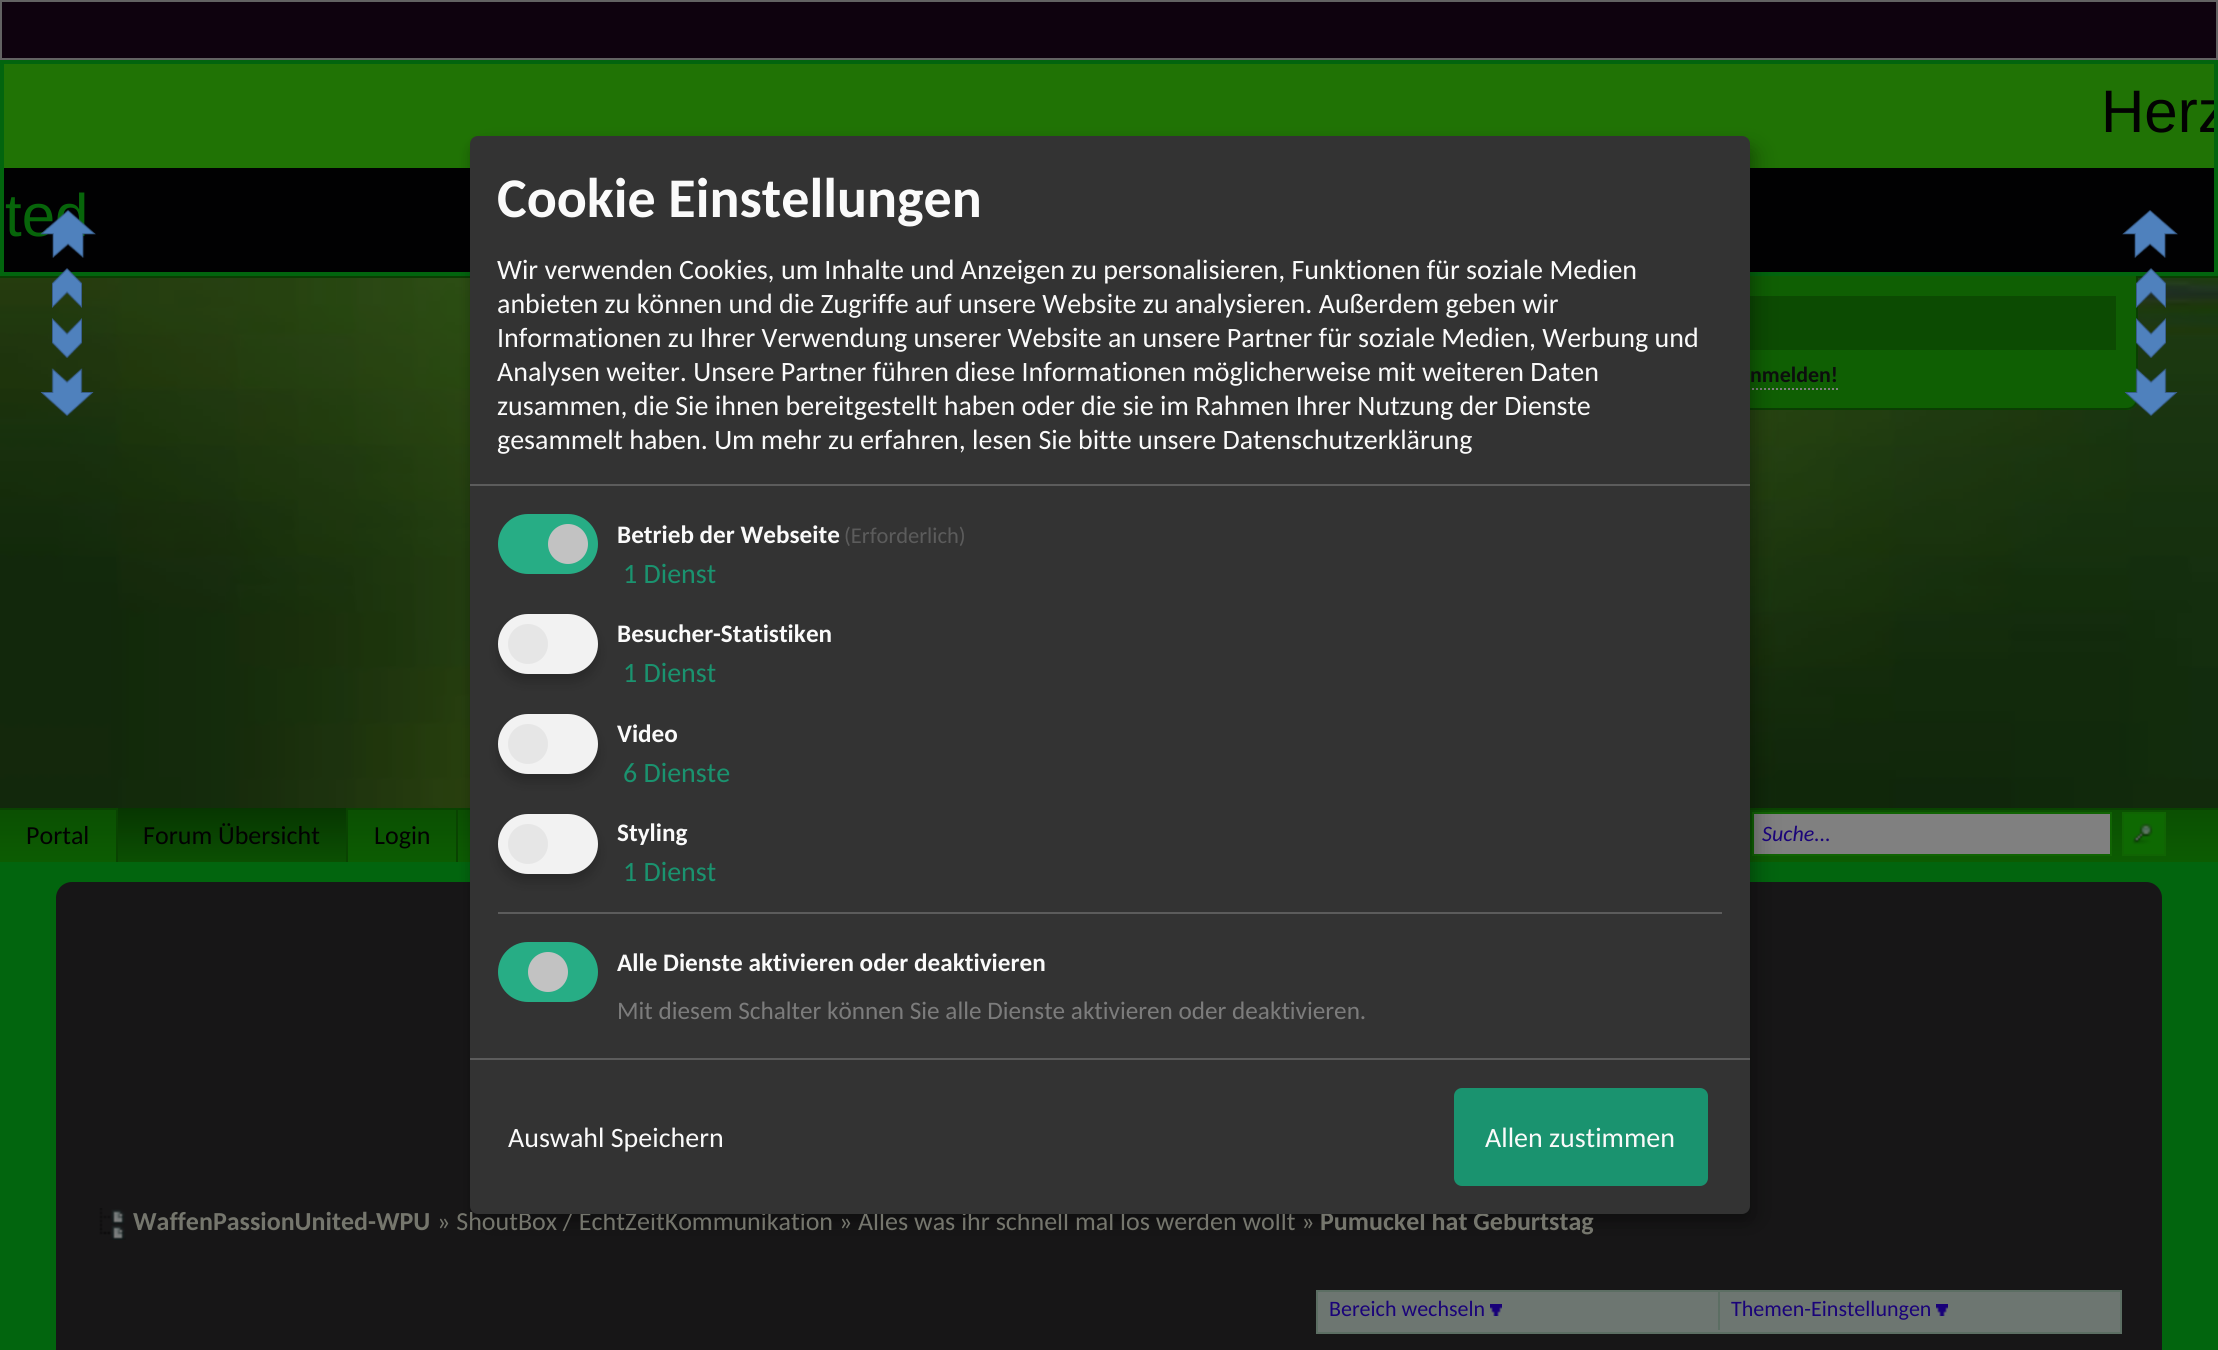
import math
import cairo

surface = cairo.ImageSurface(cairo.Format.RGB24, 2218, 1350)
ctx = cairo.Context(surface)
options = cairo.FontOptions()
options.set_hint_metrics(cairo.HintMetrics.OFF)
options.set_hint_style(cairo.HintStyle.NONE)
ctx.set_font_options(options)
ctx.set_miter_limit(4)


def ink(r, g, b):
    ctx.set_source_rgb(r / 255, g / 255, b / 255)


def write(x, y, s, family, size, color, bold=False, italic=False):
    ctx.select_font_face(family, cairo.FontSlant.ITALIC if italic else cairo.FontSlant.NORMAL, cairo.FontWeight.BOLD if bold else cairo.FontWeight.NORMAL)
    ctx.set_font_size(size)
    ink(*color)
    ctx.move_to(x, y)
    ctx.show_text(s)


def block(x, y, w, h, *color):
    ink(*color)
    ctx.rectangle(x, y, w, h)
    ctx.fill()


def round_path(x, y, w, h, r):
    ctx.new_sub_path()
    for i, (u, v) in enumerate([(x + w - r, y + h - r), (x + r, y + h - r), (x + r, y + r), (x + w - r, y + r)]):
        ctx.arc(u, v, r, i * math.pi / 2, (i + 1) * math.pi / 2)
    ctx.close_path()


def blur_box(x, y, w, h, r, blur, alpha):
    ctx.push_group_with_content(cairo.Content.ALPHA)
    ctx.set_operator(cairo.Operator.SOURCE)
    for i in range(15, -16, -2):
        e = blur * i / 6
        if min(w, h) + 2 * e > 0:
            ctx.set_source_rgba(0, 0, 0, alpha * math.erfc((i - 1) / 8.5) / 2)
            round_path(x - e, y - e, w + 2 * e, h + 2 * e, max(0, min(r + e + blur * .6, min(w, h) / 2 + e)))
            ctx.fill()
    ctx.mask(ctx.pop_group())


def paste(path, x, y, w, h):
    ctx.save()
    ctx.set_source_surface(cairo.ImageSurface.create_from_png(path), x, y)
    ctx.rectangle(x, y, w, h)
    ctx.fill()
    ctx.restore()


s1 = dict(family="Liberation Sans", size=60, color=(2, 2, 2))
s2 = dict(family="Liberation Sans", size=60, color=(7, 101, 10))
s3 = dict(family="Carlito", size=26, color=(117, 118, 109))
s4 = dict(family="Carlito", size=26, color=(117, 118, 109), bold=True)
s5 = dict(family="Carlito", size=56, color=(250, 250, 250), bold=True)
s6 = dict(family="Carlito", size=28, color=(250, 250, 250))
s7 = dict(family="Carlito", size=25.2, color=(250, 250, 250), bold=True)
s8 = dict(family="Carlito", size=22.5, color=(92, 92, 92))
s9 = dict(family="Carlito", size=28, color=(26, 147, 111))
s10 = dict(family="Carlito", size=25.2, color=(124, 124, 124))
s11 = dict(family="Carlito", size=22, color=(12, 14, 13), bold=True)
s12 = dict(family="Carlito", size=26, color=(2, 2, 2))
s13 = dict(family="Carlito", size=22, color=(26, 3, 121), italic=True)
s14 = dict(family="Carlito", size=22, color=(26, 3, 121))

ink(2, 101, 14)
ctx.paint()
ink(14, 2, 14)
ctx.rectangle(1, 1, 2216, 58)
ctx.fill_preserve()
ink(98, 98, 98)
ctx.stroke()
block(4, 64, 2210, 104, 32, 115, 5)
ctx.save()
ctx.rectangle(4, 64, 2210, 104)
ctx.clip()
write(2101, 132, "Herz", **s1)
ctx.restore()
block(4, 168, 2210, 104, 1, 1, 2)
write(5, 236, "ted", **s2)
block(0, 276, 2218, 2, 10, 62, 2)
paste("pic1.png", 0, 278, 2218, 530)
ink(15, 95, 3)
ctx.new_path()
ctx.move_to(1494, 276)
ctx.line_to(2138, 276)
ctx.line_to(2138, 398)
ctx.curve_to(2138, 404.5, 2132.5, 410, 2126, 410)
ctx.line_to(1506, 410)
ctx.curve_to(1499.5, 410, 1494, 404.5, 1494, 398)
ctx.close_path()
ctx.fill()
ink(10, 62, 2)
ctx.set_fill_rule(cairo.FillRule.EVEN_ODD)
ctx.new_path()
ctx.move_to(1494, 276)
ctx.line_to(2138, 276)
ctx.line_to(2138, 398)
ctx.curve_to(2138, 405, 2133, 410, 2126, 410)
ctx.line_to(1506, 410)
ctx.curve_to(1499, 410, 1494, 405, 1494, 398)
ctx.close_path()
ctx.move_to(1496, 276)
ctx.line_to(2136, 276)
ctx.line_to(2136, 398)
ctx.curve_to(2136, 404, 2132, 408, 2126, 408)
ctx.line_to(1506, 408)
ctx.curve_to(1500, 408, 1496, 404, 1496, 398)
ctx.close_path()
ctx.fill()
block(1750, 296, 366, 54, 12, 75, 2)
ctx.new_path()
ctx.move_to(1692, 389)
ctx.line_to(1838, 389)
ink(128, 128, 128)
ctx.set_dash([2, 2])
ctx.stroke()
gradient = cairo.LinearGradient(0, 808, 0, 862)
gradient.add_color_stop_rgba(0, 0.043, 0.31, 0.008, 1)
gradient.add_color_stop_rgba(1, 0.047, 0.361, 0.008, 1)
ctx.set_source(gradient)
ctx.rectangle(0, 810, 2218, 52)
ctx.fill()
block(0, 808, 2218, 2, 9, 67, 1)
block(456, 808, 2, 54, 9, 67, 1)
ink(128, 128, 128)
ctx.rectangle(1753, 813, 358, 42)
ctx.fill_preserve()
ink(16, 100, 3)
ctx.set_dash([])
ctx.stroke()
ink(23, 22, 23)
round_path(56, 882, 2106, 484, 16)
ctx.fill()
ink(0, 0, 0)
blur_box(480, 146, 1280, 1078, 8, 10, 0.19)
blur_box(470, 144, 1280, 1078, 8, 6, 0.2)
write(437, 1230, "» ShoutBox / EchtZeitKommunikation » Alles was ihr schnell mal los werden wollt »", **s3)
write(1320, 1230, "Pumuckel hat Geburtstag", **s4)
ink(51, 51, 51)
round_path(470, 136, 1280, 1078, 8)
ctx.fill()
block(470, 484, 1280, 2, 92, 92, 92)
write(497, 217, "Cookie Einstellungen", **s5)
write(497, 279, "Wir verwenden Cookies, um Inhalte und Anzeigen zu personalisieren, Funktionen für soziale Medien", **s6)
write(497, 313, "anbieten zu können und die Zugriffe auf unsere Website zu analysieren. Außerdem geben wir", **s6)
write(497, 347, "Informationen zu Ihrer Verwendung unserer Website an unsere Partner für soziale Medien, Werbung und", **s6)
write(497, 381, "Analysen weiter. Unsere Partner führen diese Informationen möglicherweise mit weiteren Daten", **s6)
write(497, 415, "zusammen, die Sie ihnen bereitgestellt haben oder die sie im Rahmen Ihrer Nutzung der Dienste", **s6)
write(497, 449, "gesammelt haben. Um mehr zu erfahren, lesen Sie bitte unsere Datenschutzerklärung", **s6)
ink(39, 173, 133)
round_path(498, 514, 100, 60, 30)
ctx.fill()
ink(194, 194, 194)
ctx.arc(568, 544, 20, 0, 2 * math.pi)
ctx.fill()
write(617, 543, "Betrieb der Webseite", **s7)
write(844, 543, "(Erforderlich)", **s8)
write(623, 583, "1 Dienst", **s9)
ink(0, 0, 0)
blur_box(498, 622, 100, 60, 30, 6, 0.2)
ink(242, 242, 242)
round_path(498, 614, 100, 60, 30)
ctx.fill()
ink(230, 230, 230)
ctx.arc(528, 644, 20, 0, 2 * math.pi)
ctx.fill()
write(617, 642, "Besucher-Statistiken", **s7)
write(623, 682, "1 Dienst", **s9)
ink(0, 0, 0)
blur_box(498, 722, 100, 60, 30, 6, 0.2)
ink(242, 242, 242)
round_path(498, 714, 100, 60, 30)
ctx.fill()
ink(230, 230, 230)
ctx.arc(528, 744, 20, 0, 2 * math.pi)
ctx.fill()
write(617, 742, "Video", **s7)
write(623, 782, "6 Dienste", **s9)
ink(0, 0, 0)
blur_box(498, 822, 100, 60, 30, 6, 0.2)
ink(242, 242, 242)
round_path(498, 814, 100, 60, 30)
ctx.fill()
ink(230, 230, 230)
ctx.arc(528, 844, 20, 0, 2 * math.pi)
ctx.fill()
write(617, 841, "Styling", **s7)
write(623, 881, "1 Dienst", **s9)
block(498, 912, 1224, 2, 92, 92, 92)
ink(39, 173, 133)
round_path(498, 942, 100, 60, 30)
ctx.fill()
ink(194, 194, 194)
ctx.arc(548, 972, 20, 0, 2 * math.pi)
ctx.fill()
write(617, 971, "Alle Dienste aktivieren oder deaktivieren", **s7)
write(617, 1019, "Mit diesem Schalter können Sie alle Dienste aktivieren oder deaktivieren.", **s10)
block(470, 1058, 1280, 2, 92, 92, 92)
write(508, 1147, "Auswahl Speichern", **s6)
ink(26, 147, 111)
round_path(1454, 1088, 254, 98, 8)
ctx.fill()
write(1485, 1147, "Allen zustimmen", **s6)
write(1750, 382, "nmelden!", **s11)
write(26, 844, "Portal", **s12)
gradient = cairo.LinearGradient(118, 808, 118, 862)
gradient.add_color_stop_rgba(0, 0.027, 0.212, 0.004, 1)
gradient.add_color_stop_rgba(1, 0.043, 0.31, 0.008, 1)
ctx.set_source(gradient)
ctx.rectangle(118, 808, 228, 54)
ctx.fill()
block(346, 808, 2, 54, 9, 67, 1)
block(116, 808, 2, 54, 9, 67, 1)
write(143, 844, "Forum Übersicht", **s12)
write(374, 844, "Login", **s12)
write(1762, 841, "Suche...", **s13)
block(2124, 814, 40, 40, 14, 105, 2)
paste("pic2.png", 2132, 823, 21, 22)
ctx.rectangle(2123, 813, 42, 42)
ink(16, 100, 3)
ctx.stroke()
paste("pic3.png", 40, 210, 56, 48)
paste("pic4.png", 52, 268, 30, 40)
paste("pic5.png", 52, 318, 30, 40)
paste("pic6.png", 40, 368, 54, 48)
paste("pic7.png", 2122, 210, 56, 48)
paste("pic8.png", 2136, 268, 30, 40)
paste("pic9.png", 2136, 318, 30, 40)
paste("pic10.png", 2124, 368, 54, 48)
paste("pic11.png", 99, 1208, 27, 32)
write(133, 1230, "WaffenPassionUnited-WPU", **s4)
ink(109, 118, 113)
ctx.rectangle(1317, 1291, 804, 42)
ctx.fill_preserve()
ink(92, 110, 99)
ctx.stroke()
write(1329, 1316, "Bereich wechseln", **s14)
paste("pic12.png", 1490, 1304, 12, 12)
block(1718, 1292, 2, 38, 92, 110, 99)
write(1731, 1316, "Themen-Einstellungen", **s14)
paste("pic12.png", 1936, 1304, 12, 12)
surface.write_to_png("screenshot.png")
